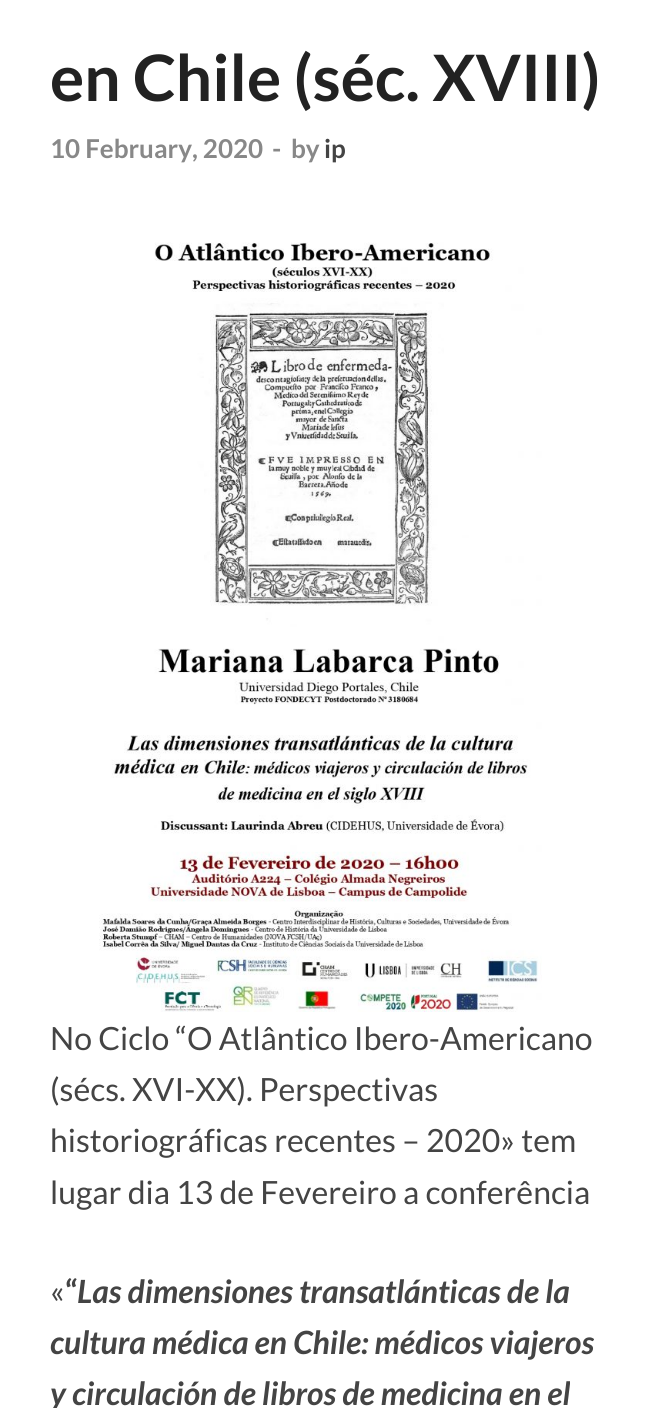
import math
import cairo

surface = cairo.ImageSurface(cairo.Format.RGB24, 657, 1408)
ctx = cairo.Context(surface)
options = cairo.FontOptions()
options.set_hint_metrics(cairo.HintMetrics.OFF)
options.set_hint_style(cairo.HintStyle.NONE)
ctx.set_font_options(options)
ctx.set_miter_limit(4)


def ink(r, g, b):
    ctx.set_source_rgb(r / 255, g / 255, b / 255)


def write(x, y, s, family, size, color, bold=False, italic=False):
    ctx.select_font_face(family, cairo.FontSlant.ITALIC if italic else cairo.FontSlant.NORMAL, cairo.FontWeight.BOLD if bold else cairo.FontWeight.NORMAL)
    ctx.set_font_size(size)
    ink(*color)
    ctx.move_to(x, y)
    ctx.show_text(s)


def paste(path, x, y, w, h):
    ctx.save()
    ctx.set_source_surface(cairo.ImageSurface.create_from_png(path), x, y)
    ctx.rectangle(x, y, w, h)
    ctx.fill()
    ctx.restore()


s1 = dict(family="Lato", size=64, color=(34, 34, 34), bold=True)
s2 = dict(family="Lato", size=26, color=(136, 136, 136), bold=True)
s3 = dict(family="Lato", size=26, color=(68, 68, 68), bold=True)
s4 = dict(family="Lato", size=32, color=(68, 68, 68))
s5 = dict(family="Lato", size=32, color=(68, 68, 68), bold=True)
s6 = dict(family="Lato", size=32, color=(68, 68, 68), bold=True, italic=True)

ink(255, 255, 255)
ctx.paint()
write(50, 101, "en Chile (séc. XVIII)", **s1)
write(50, 158, "10 February, 2020", **s2)
write(272, 158, "-", **s2)
write(291, 158, "by", **s2)
write(324, 158, "ip", **s3)
paste("pic1.png", 99, 242, 443, 770)
write(50, 1050, "No Ciclo “O Atlântico Ibero-Americano", **s4)
write(50, 1101, "(sécs. XVI-XX). Perspectivas", **s4)
write(50, 1152, "historiográficas recentes – 2020» tem", **s4)
write(50, 1204, "lugar dia 13 de Fevereiro a conferência", **s4)
write(50, 1303, "«", **s4)
write(65, 1303, "“", **s5)
write(77, 1303, "Las dimensiones transatlánticas de la", **s6)
write(50, 1354, "cultura médica en Chile: médicos viajeros", **s6)
write(50, 1405, "y circulación de libros de medicina en el", **s6)
surface.write_to_png("screenshot.png")
